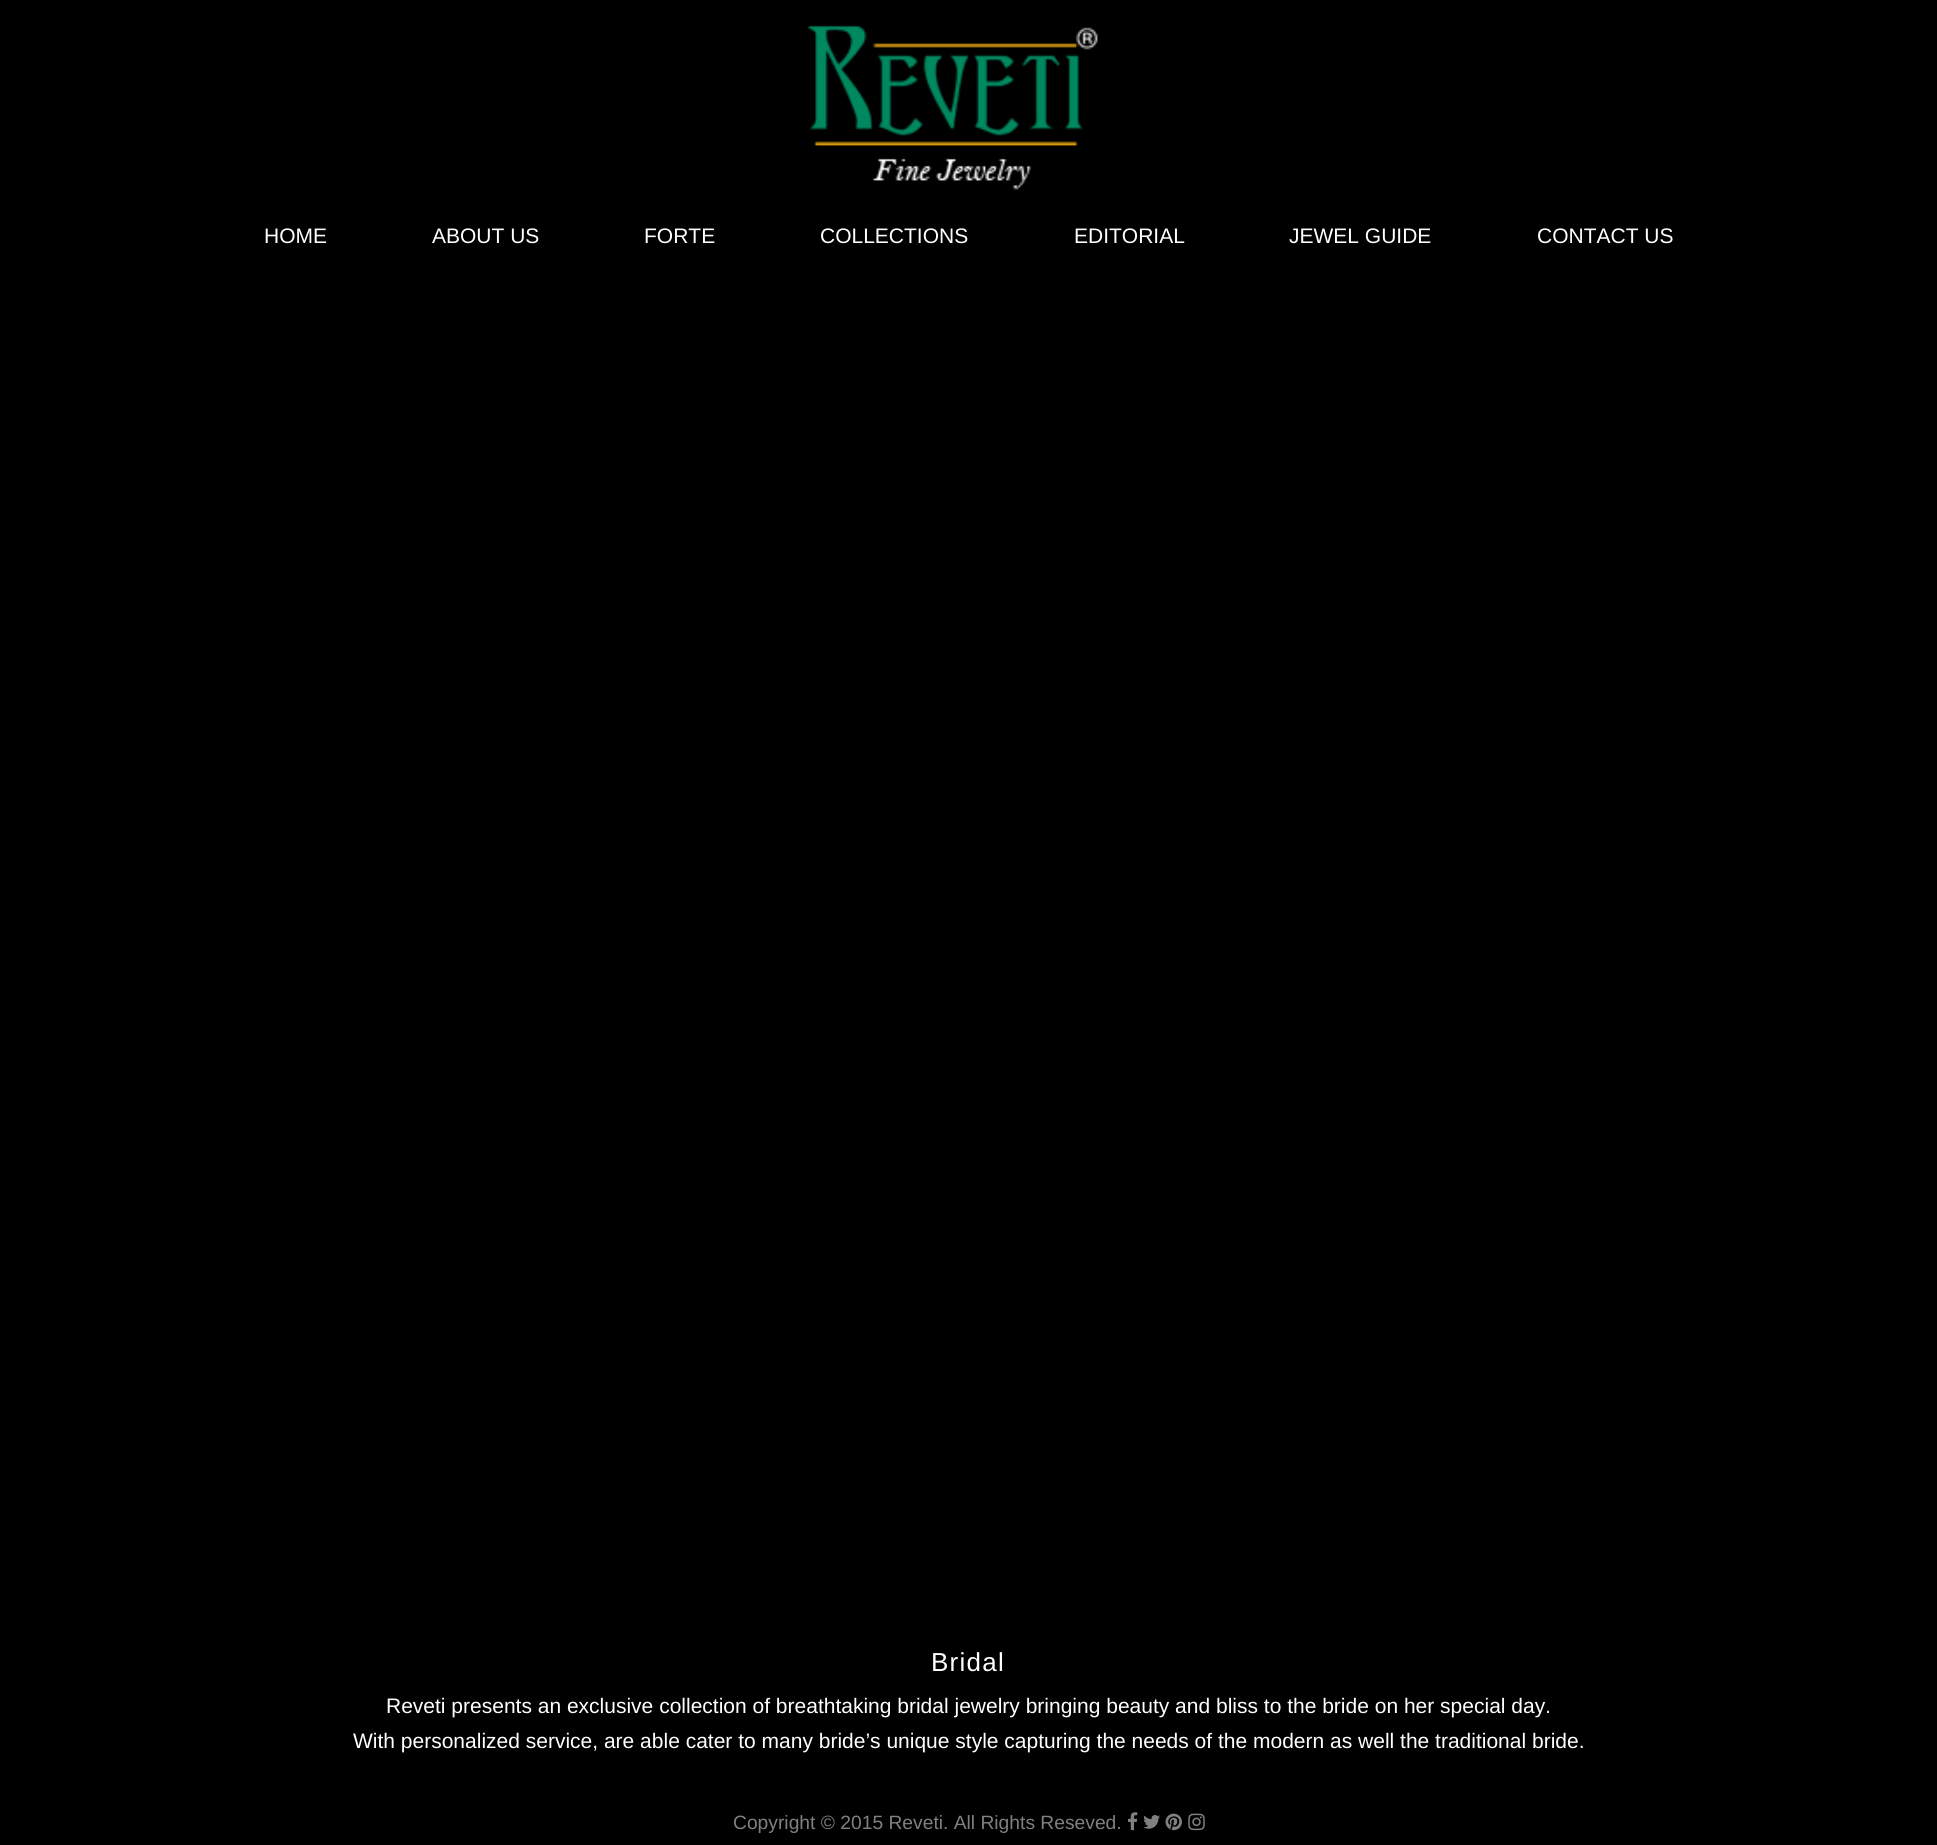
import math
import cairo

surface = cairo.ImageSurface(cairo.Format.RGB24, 1937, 1845)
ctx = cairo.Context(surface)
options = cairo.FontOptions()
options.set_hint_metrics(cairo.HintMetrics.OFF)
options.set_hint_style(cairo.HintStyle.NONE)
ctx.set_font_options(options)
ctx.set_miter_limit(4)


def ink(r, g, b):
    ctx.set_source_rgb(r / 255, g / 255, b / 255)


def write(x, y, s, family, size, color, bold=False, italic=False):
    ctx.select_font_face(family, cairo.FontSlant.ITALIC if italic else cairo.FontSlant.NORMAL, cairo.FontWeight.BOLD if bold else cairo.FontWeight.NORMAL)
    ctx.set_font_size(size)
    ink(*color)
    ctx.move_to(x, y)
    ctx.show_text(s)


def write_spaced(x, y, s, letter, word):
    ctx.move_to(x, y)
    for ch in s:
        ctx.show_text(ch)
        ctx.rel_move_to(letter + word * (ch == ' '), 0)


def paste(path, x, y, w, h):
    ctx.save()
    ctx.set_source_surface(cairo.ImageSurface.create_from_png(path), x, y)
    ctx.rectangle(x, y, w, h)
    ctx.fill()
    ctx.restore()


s1 = dict(family="Liberation Sans", size=21, color=(255, 255, 255))
s2 = dict(family="Liberation Sans", size=19.25, color=(128, 128, 128))

ink(0, 0, 0)
ctx.paint()
paste("pic1.png", 808, 25, 290, 165)
write(264, 243, "HOME", **s1)
write(432, 243, "ABOUT US", **s1)
write(644, 243, "FORTE", **s1)
write(820, 243, "COLLECTIONS", **s1)
write(1074, 243, "EDITORIAL", **s1)
write(1289, 243, "JEWEL GUIDE", **s1)
write(1537, 243, "CONTACT US", **s1)
ctx.set_font_size(26)
write_spaced(931, 1671, "Bridal", 1.25, 0)
write(386, 1713, "Reveti presents an exclusive collection of breathtaking bridal jewelry bringing beauty and bliss to the bride on her special day.", **s1)
write(353, 1748, "With personalized service, are able cater to many bride’s unique style capturing the needs of the modern as well the traditional bride.", **s1)
write(733, 1829, "Copyright © 2015 Reveti. All Rights Reseved.", **s2)
paste("pic2.png", 1128, 1812, 10, 19)
paste("pic3.png", 1143, 1815, 17, 14)
paste("pic4.png", 1165, 1813, 17, 18)
paste("pic5.png", 1188, 1813, 17, 18)
surface.write_to_png("screenshot.png")
